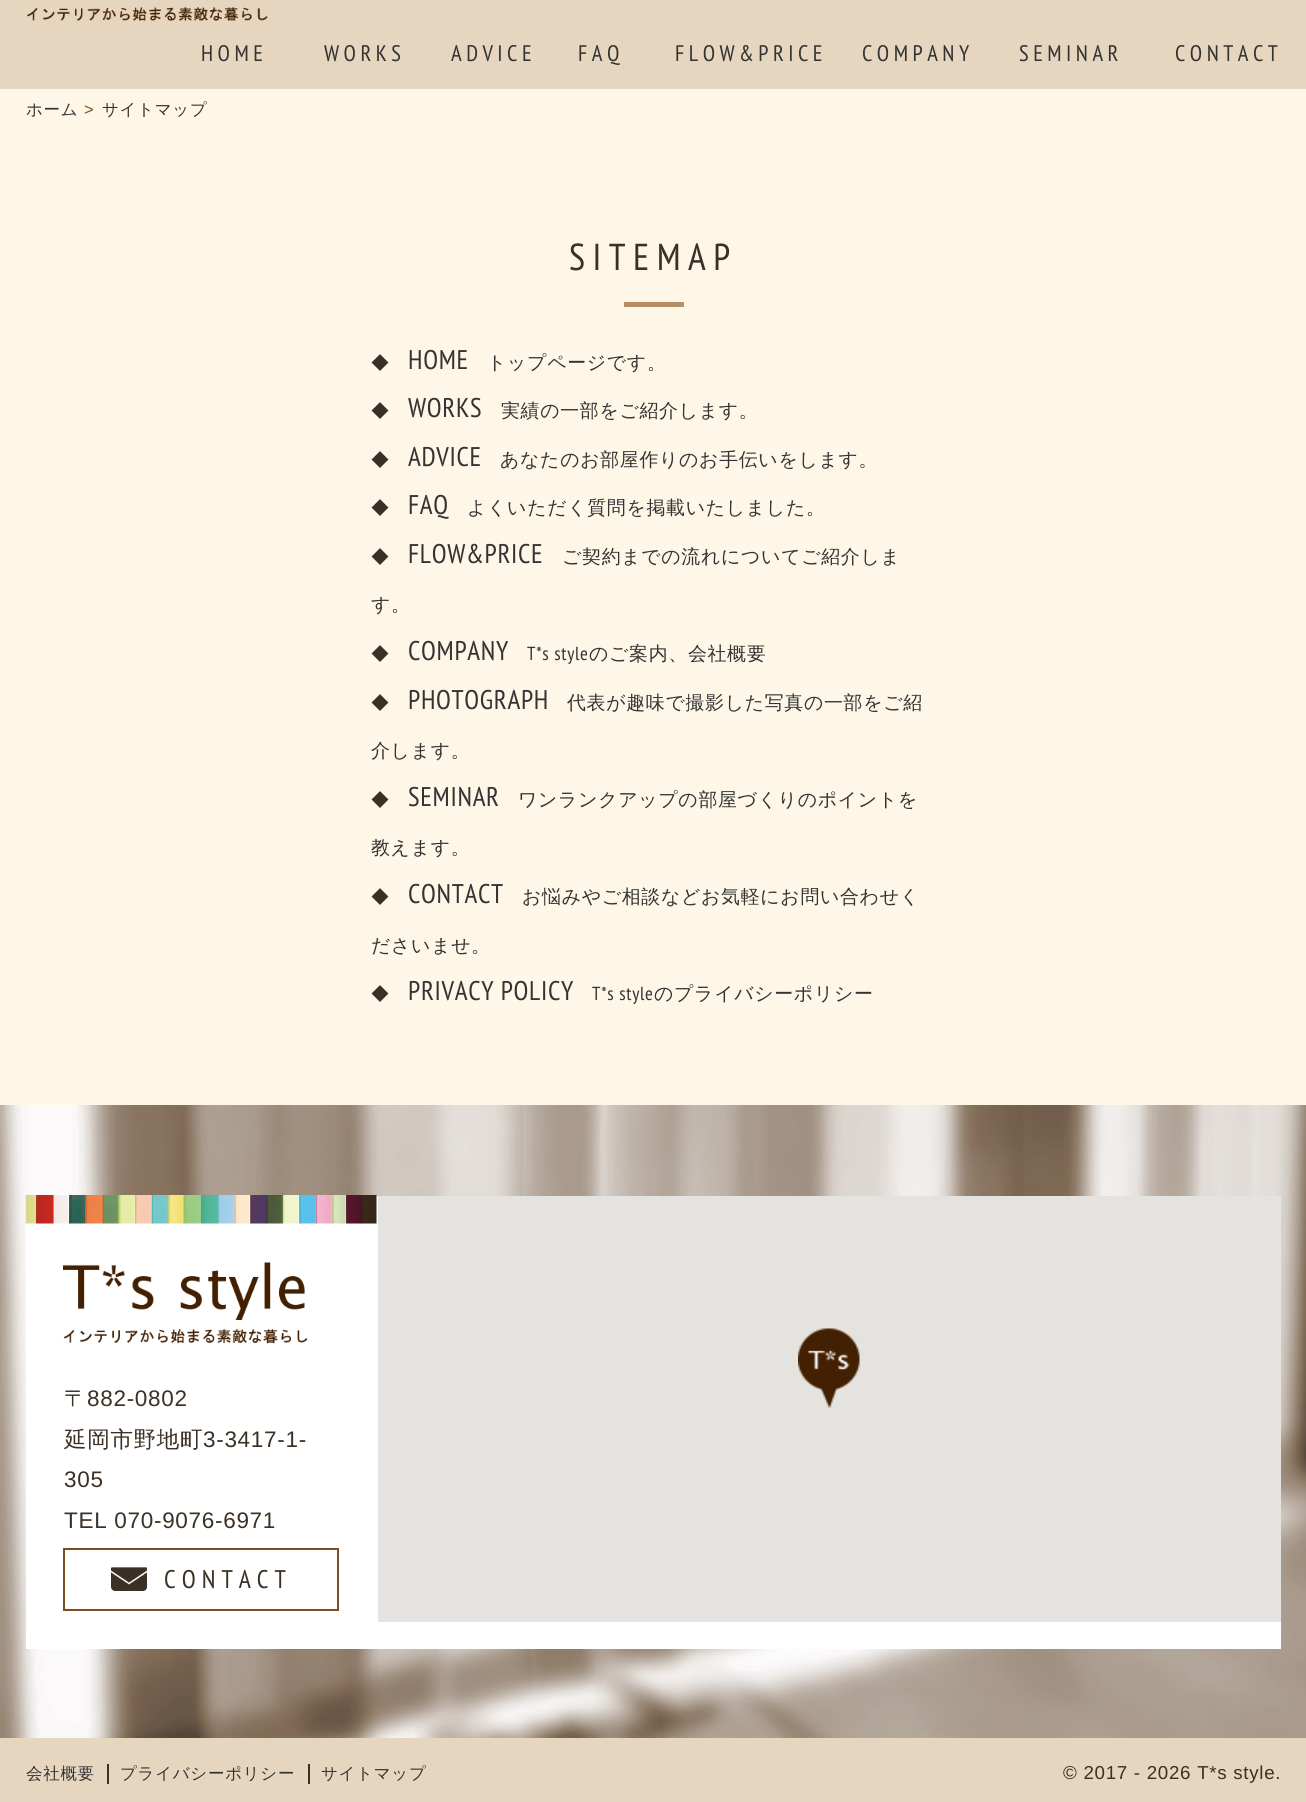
import math
import cairo

surface = cairo.ImageSurface(cairo.Format.RGB24, 1306, 1802)
ctx = cairo.Context(surface)
options = cairo.FontOptions()
options.set_hint_metrics(cairo.HintMetrics.OFF)
options.set_hint_style(cairo.HintStyle.NONE)
ctx.set_font_options(options)
ctx.set_miter_limit(4)


def ink(r, g, b):
    ctx.set_source_rgb(r / 255, g / 255, b / 255)


def write_spaced(x, y, s, letter, word):
    ctx.move_to(x, y)
    for ch in s:
        ctx.show_text(ch)
        ctx.rel_move_to(letter + word * (ch == ' '), 0)


def block(x, y, w, h, *color):
    ink(*color)
    ctx.rectangle(x, y, w, h)
    ctx.fill()


def paste(path, x, y, w, h):
    ctx.save()
    ctx.set_source_surface(cairo.ImageSurface.create_from_png(path), x, y)
    ctx.rectangle(x, y, w, h)
    ctx.fill()
    ctx.restore()


ink(231, 214, 191)
ctx.paint()
paste("pic1.png", 27, 7, 241, 14)
ctx.select_font_face("PT Sans Narrow")
ctx.set_font_size(22.5)
ink(51, 51, 51)
write_spaced(201, 61, "HOME", 4.5, 0)
write_spaced(324, 61, "WORKS", 4.5, 0)
write_spaced(451, 61, "ADVICE", 4.5, 0)
write_spaced(578, 61, "FAQ", 4.5, 0)
write_spaced(675, 61, "FLOW&PRICE", 4.5, 0)
write_spaced(862, 61, "COMPANY", 4.5, 0)
write_spaced(1019, 61, "SEMINAR", 4.5, 0)
write_spaced(1175, 61, "CONTACT", 4.5, 0)
block(0, 89, 1306, 1016, 254, 247, 231)
ctx.select_font_face("WenQuanYi Zen Hei Medium")
ctx.set_font_size(16.5)
ink(51, 51, 51)
write_spaced(26, 115, "ホーム", 0.7, 0)
ctx.select_font_face("Liberation Sans")
ink(122, 78, 33)
write_spaced(84, 115, ">", 0.7, 0)
ctx.select_font_face("WenQuanYi Zen Hei Medium")
ink(59, 48, 37)
write_spaced(102, 115, "サイトマップ", 0.7, 0)
ctx.select_font_face("PT Sans Narrow")
ctx.set_font_size(37.5)
write_spaced(569, 270, "SITEMAP", 7.5, 0)
block(624, 302, 60, 5, 183, 143, 103)
ctx.select_font_face("WenQuanYi Zen Hei Medium")
ctx.set_font_size(18)
ink(59, 48, 37)
write_spaced(371, 369, "◆", 0.7, 0)
ctx.select_font_face("PT Sans Narrow")
ctx.set_font_size(27)
ink(51, 51, 51)
write_spaced(408, 369, "HOME", 0.7, 0)
ctx.select_font_face("WenQuanYi Zen Hei Medium")
ctx.set_font_size(18.9)
write_spaced(487, 369, "トップページです。", 0.7, 0)
ctx.set_font_size(18)
ink(59, 48, 37)
write_spaced(371, 417, "◆", 0.7, 0)
ctx.select_font_face("PT Sans Narrow")
ctx.set_font_size(27)
ink(51, 51, 51)
write_spaced(408, 417, "WORKS", 0.7, 0)
ctx.select_font_face("WenQuanYi Zen Hei Medium")
ctx.set_font_size(18.9)
write_spaced(501, 417, "実績の一部をご紹介します。", 0.7, 0)
ctx.set_font_size(18)
ink(59, 48, 37)
write_spaced(371, 466, "◆", 0.7, 0)
ctx.select_font_face("PT Sans Narrow")
ctx.set_font_size(27)
ink(51, 51, 51)
write_spaced(408, 466, "ADVICE", 0.7, 0)
ctx.select_font_face("WenQuanYi Zen Hei Medium")
ctx.set_font_size(18.9)
write_spaced(500, 466, "あなたのお部屋作りのお手伝いをします。", 0.7, 0)
ctx.set_font_size(18)
ink(59, 48, 37)
write_spaced(371, 514, "◆", 0.7, 0)
ctx.select_font_face("PT Sans Narrow")
ctx.set_font_size(27)
ink(51, 51, 51)
write_spaced(408, 514, "FAQ", 0.7, 0)
ctx.select_font_face("WenQuanYi Zen Hei Medium")
ctx.set_font_size(18.9)
write_spaced(467, 514, "よくいただく質問を掲載いたしました。", 0.7, 0)
ctx.set_font_size(18)
ink(59, 48, 37)
write_spaced(371, 563, "◆", 0.7, 0)
ctx.select_font_face("PT Sans Narrow")
ctx.set_font_size(27)
ink(51, 51, 51)
write_spaced(408, 563, "FLOW&PRICE", 0.7, 0)
ctx.select_font_face("WenQuanYi Zen Hei Medium")
ctx.set_font_size(18.9)
write_spaced(562, 563, "ご契約までの流れについてご紹介しま", 0.7, 0)
write_spaced(371, 611, "す。", 0.7, 0)
ctx.set_font_size(18)
ink(59, 48, 37)
write_spaced(371, 660, "◆", 0.7, 0)
ctx.select_font_face("PT Sans Narrow")
ctx.set_font_size(27)
ink(51, 51, 51)
write_spaced(408, 660, "COMPANY", 0.7, 0)
ctx.set_font_size(18.9)
write_spaced(527, 660, "T*s style", 0.7, 0)
ctx.select_font_face("WenQuanYi Zen Hei Medium")
write_spaced(589, 660, "のご案内、会社概要", 0.7, 0)
ctx.set_font_size(18)
ink(59, 48, 37)
write_spaced(371, 709, "◆", 0.7, 0)
ctx.select_font_face("PT Sans Narrow")
ctx.set_font_size(27)
ink(51, 51, 51)
write_spaced(408, 709, "PHOTOGRAPH", 0.7, 0)
ctx.select_font_face("WenQuanYi Zen Hei Medium")
ctx.set_font_size(18.9)
write_spaced(567, 709, "代表が趣味で撮影した写真の一部をご紹", 0.7, 0)
write_spaced(371, 757, "介します。", 0.7, 0)
ctx.set_font_size(18)
ink(59, 48, 37)
write_spaced(371, 806, "◆", 0.7, 0)
ctx.select_font_face("PT Sans Narrow")
ctx.set_font_size(27)
ink(51, 51, 51)
write_spaced(408, 806, "SEMINAR", 0.7, 0)
ctx.select_font_face("WenQuanYi Zen Hei Medium")
ctx.set_font_size(18.9)
write_spaced(518, 806, "ワンランクアップの部屋づくりのポイントを", 0.7, 0)
write_spaced(371, 854, "教えます。", 0.7, 0)
ctx.set_font_size(18)
ink(59, 48, 37)
write_spaced(371, 903, "◆", 0.7, 0)
ctx.select_font_face("PT Sans Narrow")
ctx.set_font_size(27)
ink(51, 51, 51)
write_spaced(408, 903, "CONTACT", 0.7, 0)
ctx.select_font_face("WenQuanYi Zen Hei Medium")
ctx.set_font_size(18.9)
write_spaced(522, 903, "お悩みやご相談などお気軽にお問い合わせく", 0.7, 0)
write_spaced(371, 952, "ださいませ。", 0.7, 0)
ctx.set_font_size(18)
ink(59, 48, 37)
write_spaced(371, 1000, "◆", 0.7, 0)
ctx.select_font_face("PT Sans Narrow")
ctx.set_font_size(27)
ink(51, 51, 51)
write_spaced(408, 1000, "PRIVACY POLICY", 0.7, 0)
ctx.set_font_size(18.9)
write_spaced(592, 1000, "T*s style", 0.7, 0)
ctx.select_font_face("WenQuanYi Zen Hei Medium")
write_spaced(654, 1000, "のプライバシーポリシー", 0.7, 0)
paste("pic2.png", 0, 1105, 1306, 633)
block(26, 1196, 1255, 453, 255, 255, 255)
paste("pic3.png", 25, 1195, 352, 29)
paste("pic4.png", 63, 1262, 245, 82)
ctx.set_font_size(22.5)
ink(59, 48, 37)
write_spaced(64, 1406, "〒", 0.7, 0)
ctx.select_font_face("Liberation Sans")
write_spaced(87, 1406, "882-0802", 0.7, 0)
ctx.select_font_face("WenQuanYi Zen Hei Medium")
write_spaced(64, 1447, "延岡市野地町", 0.7, 0)
ctx.select_font_face("Liberation Sans")
write_spaced(203, 1447, "3-3417-1-", 0.7, 0)
write_spaced(64, 1487, "305", 0.7, 0)
write_spaced(64, 1528, "TEL 070-9076-6971", 0.7, 0)
ctx.rectangle(64, 1549, 274, 61)
ink(123, 78, 33)
ctx.stroke()
paste("pic5.png", 111, 1567, 36, 24)
ctx.select_font_face("PT Sans Narrow")
ctx.set_font_size(25.5)
ink(59, 48, 37)
write_spaced(164, 1588, "CONTACT", 6, 0)
block(378, 1196, 903, 426, 229, 227, 223)
paste("pic6.png", 798, 1328, 62, 80)
block(107, 1764, 2, 20, 59, 48, 37)
ctx.select_font_face("WenQuanYi Zen Hei Medium")
ctx.set_font_size(16.5)
ink(51, 51, 51)
write_spaced(26, 1779, "会社概要", 0.7, 0)
block(308, 1764, 2, 20, 59, 48, 37)
ink(51, 51, 51)
write_spaced(120, 1779, "プライバシーポリシー", 0.7, 0)
write_spaced(321, 1779, "サイトマップ", 0.7, 0)
ctx.select_font_face("Liberation Sans")
ctx.set_font_size(18.75)
ink(59, 48, 37)
write_spaced(1063, 1779, "© 2017 - 2026 T*s style.", 0.7, 0)
surface.write_to_png("screenshot.png")
